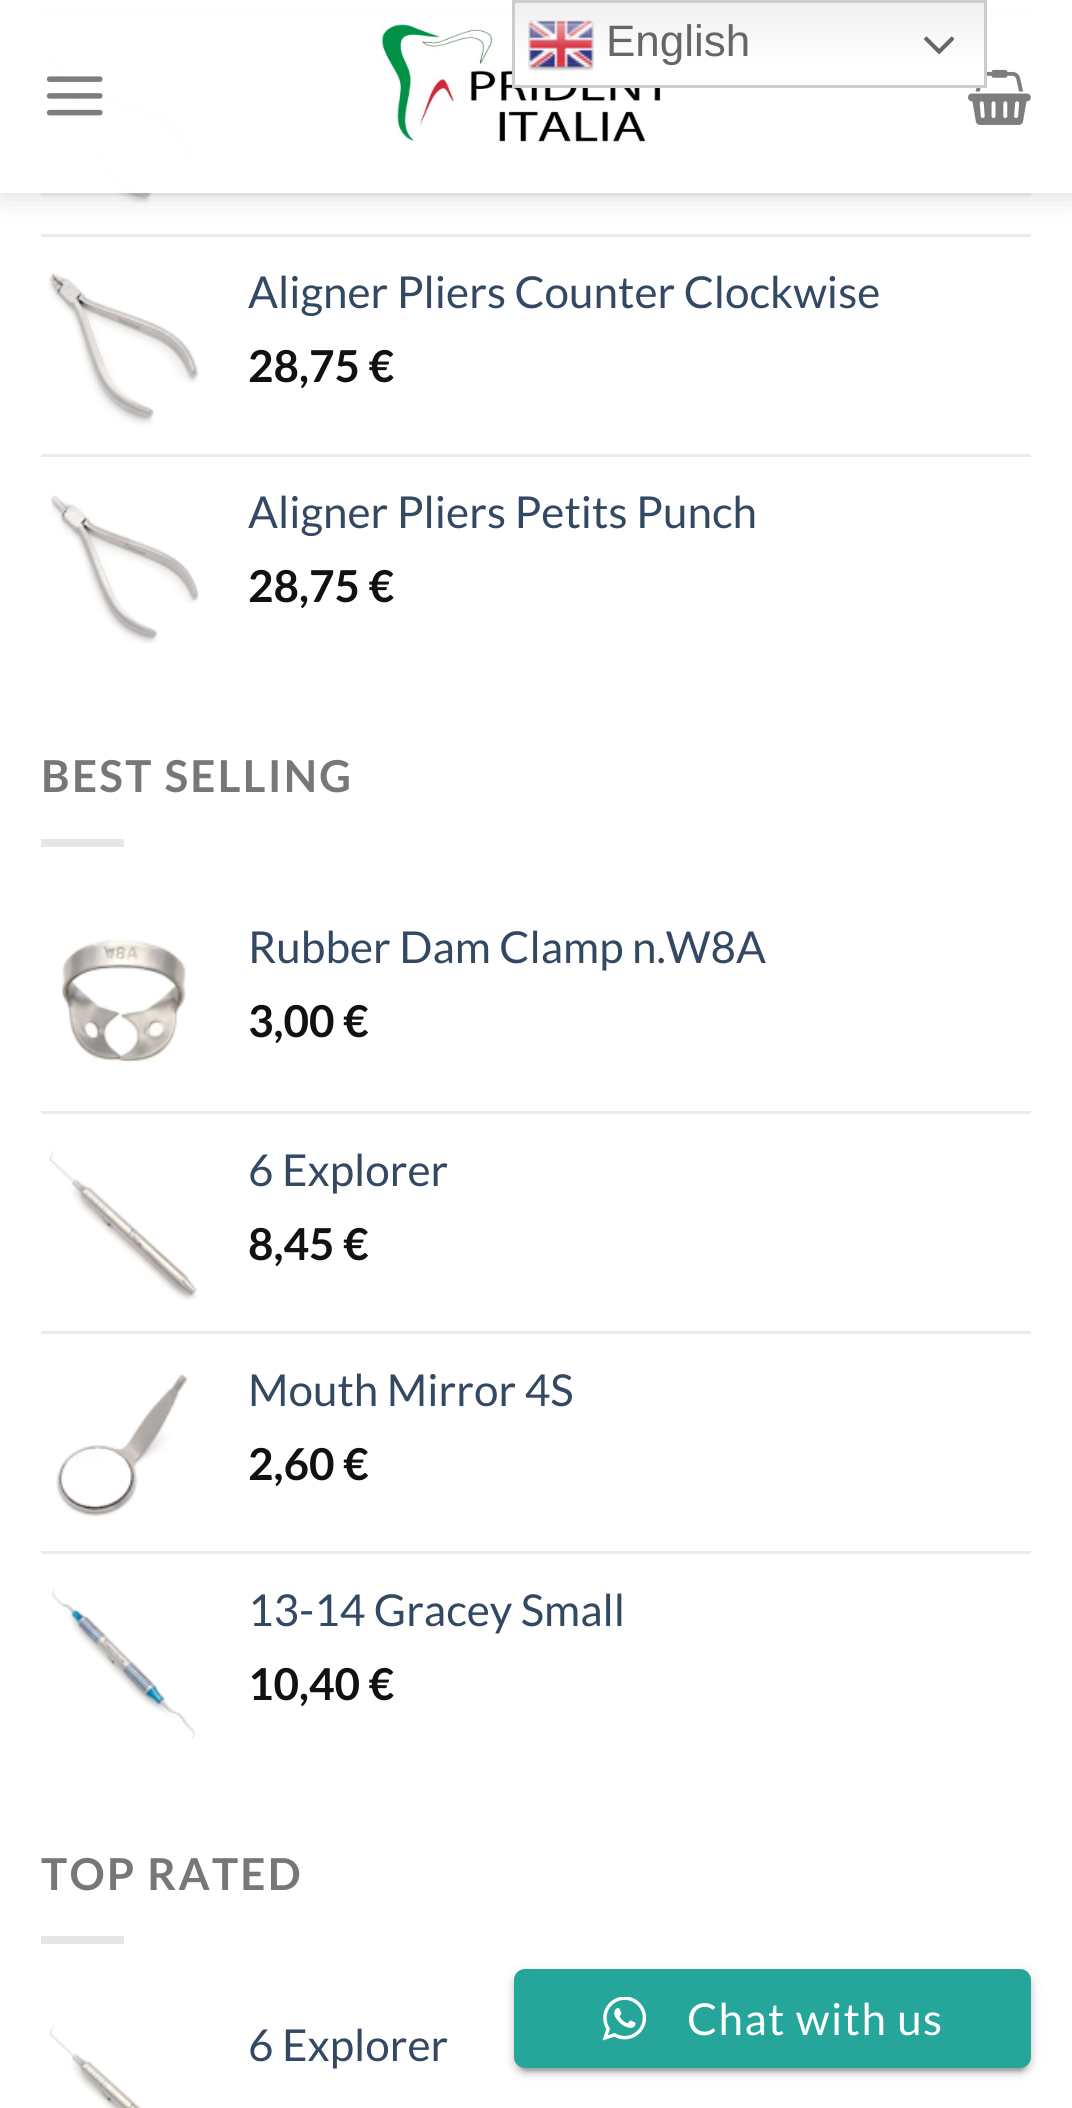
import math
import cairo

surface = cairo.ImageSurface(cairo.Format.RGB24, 1072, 2108)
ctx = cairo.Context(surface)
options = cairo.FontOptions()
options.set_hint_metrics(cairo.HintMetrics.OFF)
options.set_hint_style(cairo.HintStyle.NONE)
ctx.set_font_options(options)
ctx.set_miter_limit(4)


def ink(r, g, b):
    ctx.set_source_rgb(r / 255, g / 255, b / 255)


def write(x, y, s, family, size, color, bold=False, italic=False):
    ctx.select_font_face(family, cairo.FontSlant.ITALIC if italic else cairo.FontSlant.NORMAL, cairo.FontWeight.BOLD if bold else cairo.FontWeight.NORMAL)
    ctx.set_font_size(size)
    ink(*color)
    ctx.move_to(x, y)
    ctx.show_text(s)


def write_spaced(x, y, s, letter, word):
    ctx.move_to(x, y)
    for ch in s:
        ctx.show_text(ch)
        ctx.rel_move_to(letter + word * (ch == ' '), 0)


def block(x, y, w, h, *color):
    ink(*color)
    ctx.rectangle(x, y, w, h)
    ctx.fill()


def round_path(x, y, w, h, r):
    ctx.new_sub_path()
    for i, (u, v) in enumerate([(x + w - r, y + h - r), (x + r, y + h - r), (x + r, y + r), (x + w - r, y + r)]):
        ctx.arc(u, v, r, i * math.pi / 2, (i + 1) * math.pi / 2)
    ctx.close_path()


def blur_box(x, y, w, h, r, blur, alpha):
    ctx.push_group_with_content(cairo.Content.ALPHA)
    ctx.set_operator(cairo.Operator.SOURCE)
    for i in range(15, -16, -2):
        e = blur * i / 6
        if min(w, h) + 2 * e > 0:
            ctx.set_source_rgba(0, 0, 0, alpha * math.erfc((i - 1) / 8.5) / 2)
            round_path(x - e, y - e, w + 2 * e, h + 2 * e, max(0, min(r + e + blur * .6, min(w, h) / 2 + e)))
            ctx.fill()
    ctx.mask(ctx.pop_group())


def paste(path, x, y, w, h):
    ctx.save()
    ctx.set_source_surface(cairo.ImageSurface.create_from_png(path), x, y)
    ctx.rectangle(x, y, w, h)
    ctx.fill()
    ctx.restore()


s1 = dict(family="Liberation Sans", size=44, color=(102, 102, 102))
s2 = dict(family="Lato", size=44, color=(51, 72, 98))
s3 = dict(family="Lato", size=44, color=(17, 17, 17), bold=True)

ink(255, 255, 255)
ctx.paint()
block(41, 14, 990, 3, 236, 236, 236)
paste("pic6.png", 49, 54, 147, 150)
block(41, 234, 990, 3, 236, 236, 236)
ctx.save()
ctx.set_fill_rule(cairo.FillRule.EVEN_ODD)
ctx.new_path()
ctx.move_to(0, 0)
ctx.line_to(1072, 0)
ctx.line_to(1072, 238)
ctx.line_to(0, 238)
ctx.close_path()
ctx.move_to(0, 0)
ctx.line_to(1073, 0)
ctx.line_to(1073, 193)
ctx.line_to(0, 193)
ctx.close_path()
ctx.clip()
ink(0, 0, 0)
blur_box(3, 3, 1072, 192, 0, 14, 0.15)
ctx.restore()
ctx.set_source_rgba(1, 1, 1, 0.9)
ctx.rectangle(0, 14, 1072, 179)
ctx.fill()
paste("pic4.png", 380, 20, 292, 125)
paste("pic5.png", 968, 69, 63, 56)
gradient = cairo.LinearGradient(749, 0, 749, 88)
gradient.add_color_stop_rgba(0, 0.937, 0.937, 0.937, 1)
gradient.add_color_stop_rgba(0.7, 1, 1, 1, 1)
ctx.set_source(gradient)
ctx.rectangle(515, 3, 469, 82)
ctx.fill()
ctx.rectangle(513.5, 1.5, 472, 85)
ink(204, 204, 204)
ctx.set_line_width(3)
ctx.stroke()
paste("pic1.png", 528, 20, 66, 51)
write(606, 56, "English", **s1)
paste("pic2.png", 924, 36, 30, 19)
ctx.set_source_rgba(1, 1, 1, 0.9)
ctx.rectangle(51, 57, 144, 136)
ctx.fill()
paste("pic3.png", 46, 76, 57, 40)
ctx.set_source_rgba(0.467, 0.467, 0.467, 0.1)
ctx.rectangle(41, 193, 990, 3)
ctx.fill()
paste("pic7.png", 48, 272, 151, 153)
write(248, 308, "Aligner Pliers Counter Clockwise", **s2)
write(248, 382, "28,75 €", **s3)
block(41, 454, 990, 3, 236, 236, 236)
paste("pic8.png", 51, 495, 148, 149)
write(248, 528, "Aligner Pliers Petits Punch", **s2)
write(248, 602, "28,75 €", **s3)
ink(119, 119, 119)
write_spaced(41, 792, "BEST SELLING", 2.25, 0)
block(41, 839, 83, 8, 230, 230, 230)
paste("pic9.png", 61, 940, 125, 123)
write(248, 963, "Rubber Dam Clamp n.W8A", **s2)
write(248, 1037, "3,00 €", **s3)
block(41, 1111, 990, 3, 236, 236, 236)
paste("pic10.png", 49, 1150, 148, 151)
write(248, 1186, "6 Explorer", **s2)
write(248, 1260, "8,45 €", **s3)
block(41, 1331, 990, 3, 236, 236, 236)
paste("pic11.png", 56, 1374, 132, 143)
write(248, 1406, "Mouth Mirror 4S", **s2)
write(248, 1480, "2,60 €", **s3)
block(41, 1551, 990, 3, 236, 236, 236)
paste("pic12.png", 51, 1588, 144, 151)
write(248, 1626, "13-14 Gracey Small", **s2)
write(248, 1700, "10,40 €", **s3)
ink(119, 119, 119)
write_spaced(41, 1890, "TOP RATED", 2.25, 0)
block(41, 1936, 83, 8, 230, 230, 230)
paste("pic13.png", 49, 2024, 92, 84)
write(248, 2061, "6 Explorer", **s2)
ink(0, 0, 0)
blur_box(520, 1983, 506, 88, 6, 1.5, 0.2)
blur_box(514, 1972, 517, 99, 11, 7, 0.12)
blur_box(514, 1975, 517, 99, 11, 3, 0.14)
ink(38, 166, 154)
round_path(514, 1969, 517, 99, 11)
ctx.fill()
paste("pic14.png", 602, 1997, 44, 44)
ink(255, 255, 255)
write_spaced(687, 2035, "Chat with us", 1.4, 0)
surface.write_to_png("screenshot.png")
